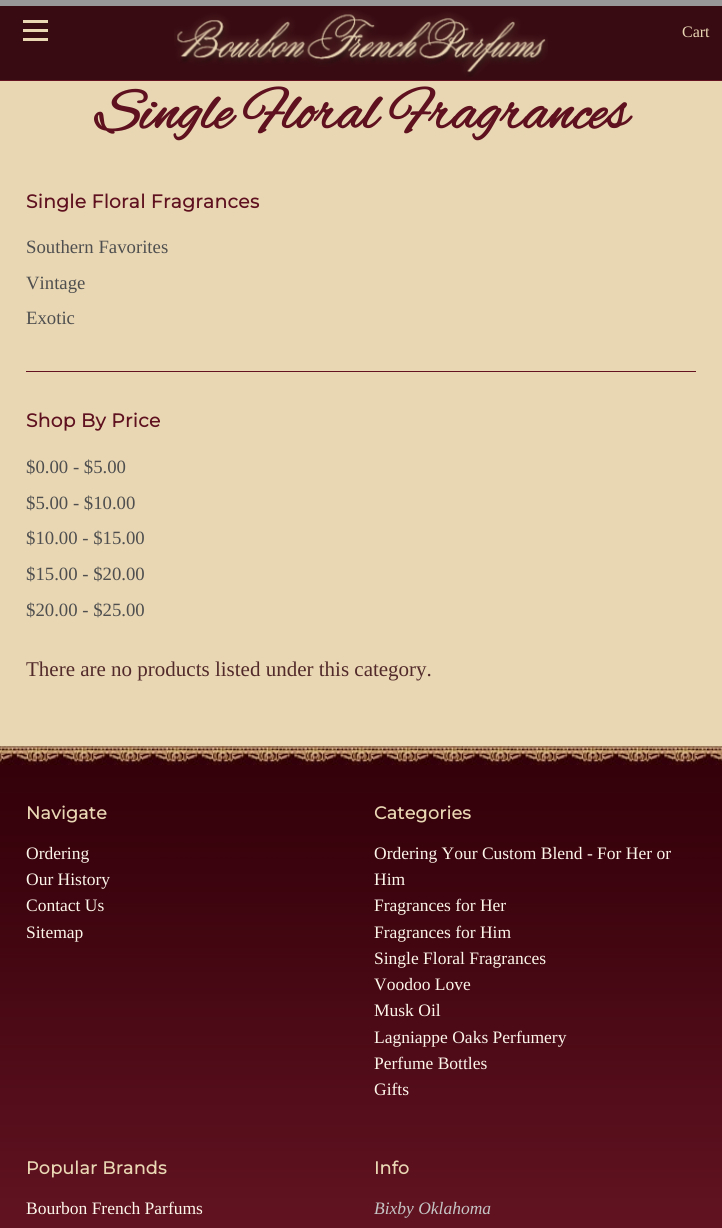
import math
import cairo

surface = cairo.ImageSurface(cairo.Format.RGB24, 722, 1228)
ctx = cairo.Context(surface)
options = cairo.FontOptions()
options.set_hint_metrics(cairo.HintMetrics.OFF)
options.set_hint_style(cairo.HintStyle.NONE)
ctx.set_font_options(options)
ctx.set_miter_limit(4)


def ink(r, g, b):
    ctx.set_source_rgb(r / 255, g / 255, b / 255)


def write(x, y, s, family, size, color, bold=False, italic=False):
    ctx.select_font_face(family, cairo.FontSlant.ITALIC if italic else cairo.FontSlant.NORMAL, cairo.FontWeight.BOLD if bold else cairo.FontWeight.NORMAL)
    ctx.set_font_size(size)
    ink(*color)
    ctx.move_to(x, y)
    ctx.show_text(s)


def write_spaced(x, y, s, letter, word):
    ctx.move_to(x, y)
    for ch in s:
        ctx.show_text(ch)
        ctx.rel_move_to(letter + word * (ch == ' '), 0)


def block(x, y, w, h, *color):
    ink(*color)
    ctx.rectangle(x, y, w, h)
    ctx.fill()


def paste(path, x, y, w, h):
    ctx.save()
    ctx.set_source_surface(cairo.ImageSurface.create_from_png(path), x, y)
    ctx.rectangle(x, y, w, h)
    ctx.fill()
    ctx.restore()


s1 = dict(family="Liberation Serif", size=16, color=(233, 215, 180))
s2 = dict(family="Liberation Serif", size=18.75, color=(79, 79, 79))
s3 = dict(family="Liberation Serif", size=21, color=(82, 42, 42))
s4 = dict(family="Liberation Serif", size=17.5, color=(252, 245, 233))
s5 = dict(family="Liberation Serif", size=17.5, color=(196, 196, 196), italic=True)

ink(233, 215, 180)
ctx.paint()
block(0, 0, 722, 6, 152, 152, 152)
block(0, 6, 722, 74, 56, 11, 18)
block(0, 80, 722, 1, 100, 17, 33)
block(23, 29, 25, 3, 233, 215, 180)
block(23, 20, 25, 3, 233, 215, 180)
block(23, 38, 25, 3, 233, 215, 180)
paste("pic1.png", 174, 10, 374, 67)
write(682, 37, "Cart", **s1)
ctx.select_font_face("Alex Brush", cairo.FontSlant.NORMAL, cairo.FontWeight.BOLD)
ctx.set_font_size(60)
ink(95, 17, 31)
write_spaced(95, 128, "Single Floral Fragrances", 0.3, 0)
ctx.select_font_face("Montserrat", cairo.FontSlant.NORMAL, cairo.FontWeight.BOLD)
ctx.set_font_size(18.75)
write_spaced(26, 208, "Single Floral Fragrances", 0.3, 0)
write(26, 253, "Southern Favorites", **s2)
write(26, 289, "Vintage", **s2)
write(26, 324, "Exotic", **s2)
block(26, 371, 670, 1, 100, 17, 33)
ctx.select_font_face("Montserrat", cairo.FontSlant.NORMAL, cairo.FontWeight.BOLD)
ink(95, 17, 31)
write_spaced(26, 427, "Shop By Price", 0.3, 0)
write(26, 473, "$0.00 - $5.00", **s2)
write(26, 509, "$5.00 - $10.00", **s2)
write(26, 544, "$10.00 - $15.00", **s2)
write(26, 580, "$15.00 - $20.00", **s2)
write(26, 616, "$20.00 - $25.00", **s2)
write(26, 676, "There are no products listed under this category.", **s3)
paste("pic2.png", 0, 765, 722, 463)
paste("pic3.png", 0, 746, 722, 19)
ctx.select_font_face("Montserrat", cairo.FontSlant.NORMAL, cairo.FontWeight.BOLD)
ctx.set_font_size(17.5)
ink(233, 215, 180)
write_spaced(26, 819, "Navigate", 0.3, 0)
write(26, 859, "Ordering", **s4)
write(26, 885, "Our History", **s4)
write(26, 911, "Contact Us", **s4)
write(26, 938, "Sitemap", **s4)
ctx.select_font_face("Montserrat", cairo.FontSlant.NORMAL, cairo.FontWeight.BOLD)
ink(233, 215, 180)
write_spaced(374, 819, "Categories", 0.3, 0)
write(374, 859, "Ordering Your Custom Blend - For Her or", **s4)
write(374, 885, "Him", **s4)
write(374, 911, "Fragrances for Her", **s4)
write(374, 938, "Fragrances for Him", **s4)
write(374, 964, "Single Floral Fragrances", **s4)
write(374, 990, "Voodoo Love", **s4)
write(374, 1016, "Musk Oil", **s4)
write(374, 1043, "Lagniappe Oaks Perfumery", **s4)
write(374, 1069, "Perfume Bottles", **s4)
write(374, 1095, "Gifts", **s4)
ctx.select_font_face("Montserrat", cairo.FontSlant.NORMAL, cairo.FontWeight.BOLD)
ink(233, 215, 180)
write_spaced(26, 1174, "Popular Brands", 0.3, 0)
write(26, 1214, "Bourbon French Parfums", **s4)
ctx.select_font_face("Montserrat", cairo.FontSlant.NORMAL, cairo.FontWeight.BOLD)
ink(233, 215, 180)
write_spaced(374, 1174, "Info", 0.3, 0)
write(374, 1214, "Bixby Oklahoma", **s5)
surface.write_to_png("screenshot.png")
